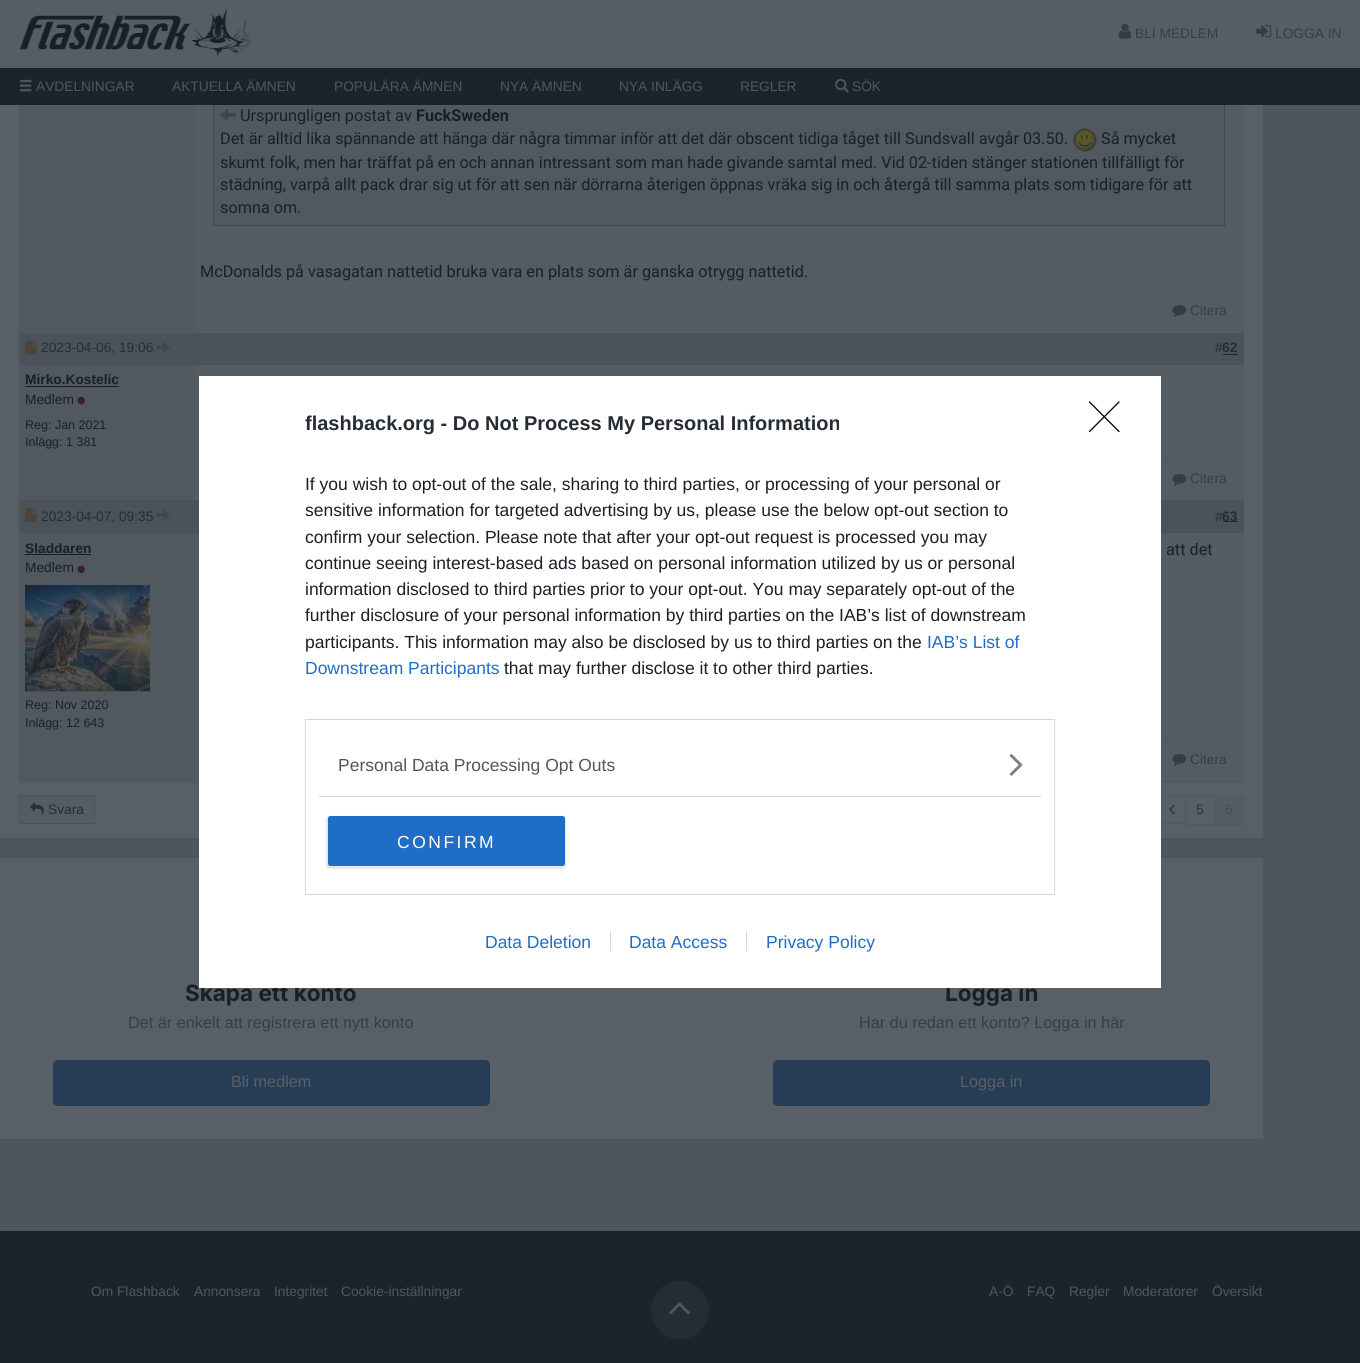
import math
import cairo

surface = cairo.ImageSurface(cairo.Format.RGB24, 1360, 1363)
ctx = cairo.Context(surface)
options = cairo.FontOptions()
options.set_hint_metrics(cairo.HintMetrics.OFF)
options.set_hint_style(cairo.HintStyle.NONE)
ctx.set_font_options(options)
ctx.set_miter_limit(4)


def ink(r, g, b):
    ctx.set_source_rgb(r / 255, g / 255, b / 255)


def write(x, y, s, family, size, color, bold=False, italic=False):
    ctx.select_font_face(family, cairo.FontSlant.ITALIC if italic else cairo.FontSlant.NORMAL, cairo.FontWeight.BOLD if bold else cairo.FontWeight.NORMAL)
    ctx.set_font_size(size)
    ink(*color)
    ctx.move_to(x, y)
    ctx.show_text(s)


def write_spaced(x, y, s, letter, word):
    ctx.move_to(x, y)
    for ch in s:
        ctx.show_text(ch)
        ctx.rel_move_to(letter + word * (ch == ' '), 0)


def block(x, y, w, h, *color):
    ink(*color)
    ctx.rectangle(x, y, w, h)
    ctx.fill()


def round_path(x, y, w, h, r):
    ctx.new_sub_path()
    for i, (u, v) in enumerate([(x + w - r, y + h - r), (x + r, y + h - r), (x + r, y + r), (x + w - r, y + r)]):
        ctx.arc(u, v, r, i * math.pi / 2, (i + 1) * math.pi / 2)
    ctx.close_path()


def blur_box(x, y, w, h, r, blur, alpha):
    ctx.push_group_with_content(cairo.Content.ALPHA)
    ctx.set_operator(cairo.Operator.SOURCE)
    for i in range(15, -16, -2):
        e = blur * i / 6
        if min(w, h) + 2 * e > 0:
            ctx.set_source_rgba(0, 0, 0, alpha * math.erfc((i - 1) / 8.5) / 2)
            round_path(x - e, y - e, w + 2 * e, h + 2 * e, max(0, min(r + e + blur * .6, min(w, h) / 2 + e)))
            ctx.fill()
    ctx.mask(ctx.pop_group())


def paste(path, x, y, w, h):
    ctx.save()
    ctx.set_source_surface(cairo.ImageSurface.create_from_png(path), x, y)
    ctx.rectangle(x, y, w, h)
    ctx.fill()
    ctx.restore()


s1 = dict(family="Liberation Sans", size=13.75, color=(55, 61, 69))
s2 = dict(family="Liberation Sans", size=13.75, color=(80, 86, 94))
s3 = dict(family="Roboto", size=16.25, color=(25, 31, 39))
s4 = dict(family="Roboto", size=16.25, color=(25, 31, 39), bold=True)
s5 = dict(family="Liberation Sans", size=13.75, color=(38, 44, 52))
s6 = dict(family="Liberation Sans", size=13.75, color=(38, 44, 52), bold=True)
s7 = dict(family="Liberation Sans", size=13.75, color=(25, 31, 39), bold=True)
s8 = dict(family="Liberation Sans", size=13.75, color=(25, 31, 39))
s9 = dict(family="Liberation Sans", size=12.5, color=(25, 31, 39))
s10 = dict(family="Liberation Sans", size=13.75, color=(42, 49, 59))
s11 = dict(family="Liberation Sans", size=13.75, color=(68, 75, 84))
s12 = dict(family="Inter", size=22.5, color=(25, 31, 39), bold=True)
s13 = dict(family="Liberation Sans", size=16.25, color=(55, 61, 69))
s14 = dict(family="Liberation Sans", size=16.25, color=(89, 95, 103))
s15 = dict(family="Liberation Sans", size=20, color=(38, 44, 52), bold=True)
s16 = dict(family="Liberation Sans", size=17.5, color=(25, 31, 39))
s17 = dict(family="Liberation Sans", size=17.5, color=(32, 109, 197))
s18 = dict(family="Liberation Sans", size=17.5, color=(80, 86, 94))

ink(79, 85, 93)
ctx.paint()
block(0, 0, 1360, 68, 87, 93, 102)
block(0, 66, 1360, 1, 81, 87, 95)
paste("pic1.png", 19, 8, 233, 48)
paste("pic2.png", 1118, 23, 14, 16)
write(1135, 38, "BLI MEDLEM", **s1)
paste("pic3.png", 1256, 25, 16, 13)
write(1275, 38, "LOGGA IN", **s1)
block(0, 105, 1263, 1034, 89, 95, 103)
block(194, 105, 1050, 228, 85, 91, 99)
block(214, 105, 1010, 120, 82, 88, 96)
ctx.rectangle(213.5, 98.5, 1011, 127)
ink(66, 72, 80)
ctx.set_line_width(1)
ctx.stroke()
block(0, 68, 1360, 37, 29, 35, 43)
paste("pic4.png", 19, 79, 13, 13)
write(36, 91, "AVDELNINGAR", **s2)
write(172, 91, "AKTUELLA ÄMNEN", **s2)
write(334, 91, "POPULÄRA ÄMNEN", **s2)
write(500, 91, "NYA ÄMNEN", **s2)
write(619, 91, "NYA INLÄGG", **s2)
write(740, 91, "REGLER", **s2)
paste("pic5.png", 835, 78, 14, 15)
write(852, 91, "SÖK", **s2)
block(19, 105, 175, 228, 82, 88, 96)
paste("pic6.png", 220, 108, 17, 14)
write(240, 121, "Ursprungligen postat av", **s3)
write(416, 121, "FuckSweden", **s4)
write(220, 144, "Det är alltid lika spännande att hänga där några timmar inför att det där obscent tidiga tåget till Sundsvall avgår 03.50.", **s3)
paste("pic7.png", 1073, 128, 24, 24)
write(1101, 144, "Så mycket", **s3)
write(220, 168, "skumt folk, men har träffat på en och annan intressant som man hade givande samtal med. Vid 02-tiden stänger stationen tillfälligt för", **s3)
write(220, 190, "städning, varpå allt pack drar sig ut för att sen när dörrarna återigen öppnas vräka sig in och återgå till samma plats som tidigare för att", **s3)
write(220, 213, "somna om.", **s3)
write(200, 277, "McDonalds på vasagatan nattetid bruka vara en plats som är ganska otrygg nattetid.", **s3)
block(194, 289, 1051, 1, 82, 88, 96)
paste("pic8.png", 1172, 305, 15, 12)
write(1190, 315, "Citera", **s1)
block(194, 365, 1050, 135, 85, 91, 99)
block(19, 333, 1225, 32, 76, 82, 90)
paste("pic9.png", 25, 340, 12, 15)
write(41, 352, "2023-04-06, 19:06", **s5)
paste("pic10.png", 156, 342, 14, 11)
write(1215, 352, "#", **s5)
write(1222, 352, "62", **s6)
block(1223, 354, 15, 1, 33, 39, 48)
block(19, 365, 175, 135, 82, 88, 96)
write(25, 384, "Mirko.Kostelic", **s7)
block(25, 386, 94, 1, 25, 31, 39)
write(25, 404, "Medlem", **s8)
paste("pic11.png", 77, 396, 8, 9)
write(25, 429, "Reg: Jan 2021", **s9)
write(25, 446, "Inlägg: 1 381", **s9)
block(194, 458, 1051, 1, 82, 88, 96)
paste("pic12.png", 1172, 473, 15, 13)
write(1190, 483, "Citera", **s1)
block(19, 533, 1225, 250, 85, 91, 99)
block(19, 781, 1225, 1, 82, 88, 96)
block(19, 500, 1225, 33, 76, 82, 90)
paste("pic13.png", 25, 508, 12, 14)
write(41, 521, "2023-04-07, 09:35", **s5)
paste("pic14.png", 156, 509, 14, 12)
write(1215, 521, "#", **s5)
block(1223, 521, 15, 1, 33, 39, 48)
write(1222, 521, "63", **s6)
block(19, 533, 175, 248, 82, 88, 96)
write(25, 553, "Sladdaren", **s7)
block(25, 554, 66, 1, 25, 31, 39)
write(25, 572, "Medlem", **s8)
paste("pic15.png", 77, 565, 8, 9)
paste("pic16.png", 25, 585, 125, 107)
write(25, 709, "Reg: Nov 2020", **s9)
write(25, 727, "Inlägg: 12 643", **s9)
write(1166, 555, "att det", **s3)
block(194, 738, 1051, 1, 82, 88, 96)
paste("pic12.png", 1172, 753, 15, 13)
write(1190, 764, "Citera", **s1)
ink(86, 92, 100)
ctx.rectangle(19.5, 795.5, 75, 28)
ctx.fill_preserve()
ink(76, 82, 90)
ctx.stroke()
paste("pic17.png", 30, 802, 14, 13)
write(48, 814, "Svara", **s5)
ctx.rectangle(1158.5, 795.5, 27, 28)
ink(83, 89, 97)
ctx.stroke()
paste("pic18.png", 1169, 804, 6, 11)
ctx.rectangle(1185.5, 795.5, 29, 29)
ctx.stroke()
write(1196, 814, "5", **s10)
ink(86, 92, 100)
ctx.rectangle(1214.5, 795.5, 29, 29)
ctx.fill_preserve()
ink(83, 89, 97)
ctx.stroke()
write(1225, 814, "6", **s11)
block(0, 838, 1263, 20, 79, 85, 93)
write(185, 1001, "Skapa ett konto", **s12)
write(128, 1028, "Det är enkelt att registrera ett nytt konto", **s13)
ink(38, 61, 85)
round_path(53.5, 1060.5, 436, 45, 4.5)
ctx.fill_preserve()
ink(36, 58, 80)
ctx.stroke()
write(231, 1087, "Bli medlem", **s14)
write(945, 1001, "Logga in", **s12)
write(859, 1028, "Har du redan ett konto? Logga in här", **s13)
ink(38, 61, 85)
round_path(773.5, 1060.5, 436, 45, 4.5)
ctx.fill_preserve()
ink(36, 58, 80)
ctx.stroke()
write(960, 1087, "Logga in", **s14)
block(199, 376, 962, 612, 255, 255, 255)
write(305, 430, "flashback.org - Do Not Process My Personal Information", **s15)
write(305, 490, "If you wish to opt-out of the sale, sharing to third parties, or processing of your personal or", **s16)
write(305, 516, "sensitive information for targeted advertising by us, please use the below opt-out section to", **s16)
write(305, 543, "confirm your selection. Please note that after your opt-out request is processed you may", **s16)
write(305, 569, "continue seeing interest-based ads based on personal information utilized by us or personal", **s16)
write(305, 595, "information disclosed to third parties prior to your opt-out. You may separately opt-out of the", **s16)
write(305, 621, "further disclosure of your personal information by third parties on the IAB’s list of downstream", **s16)
write(305, 648, "participants. This information may also be disclosed by us to third parties on the", **s16)
write(927, 648, "IAB’s List of", **s17)
write(305, 674, "Downstream Participants", **s17)
write(504, 674, "that may further disclose it to other third parties.", **s16)
ctx.rectangle(305.5, 719.5, 749, 175)
ink(216, 216, 216)
ctx.stroke()
block(319, 796, 722, 1, 216, 216, 216)
write(338, 771, "Personal Data Processing Opt Outs", **s18)
paste("pic19.png", 1009, 754, 14, 22)
ink(0, 0, 0)
blur_box(326, 816, 240, 53, 4, 0.5, 0.1)
ink(32, 109, 197)
round_path(328, 816, 237, 50, 2.5)
ctx.fill()
ink(255, 255, 255)
write_spaced(397, 848, "CONFIRM", 2.5, 0)
ctx.new_path()
ctx.move_to(1089.5, 402)
ctx.line_to(1119, 431.5)
ctx.move_to(1119, 402)
ctx.line_to(1089.5, 431.5)
ink(0, 0, 0)
ctx.set_line_width(1.3)
ctx.set_line_cap(cairo.LineCap.ROUND)
ctx.set_line_join(cairo.LineJoin.ROUND)
ctx.stroke()
write(485, 948, "Data Deletion", **s17)
write(629, 948, "Data Access", **s17)
block(610, 931, 1, 20, 216, 216, 216)
write(766, 948, "Privacy Policy", **s17)
block(746, 931, 1, 20, 216, 216, 216)
block(0, 1231, 1360, 132, 29, 35, 43)
ink(38, 44, 52)
ctx.new_path()
ctx.arc(680, 1310, 29, 0, 2 * math.pi)
ctx.fill()
paste("pic20.png", 669, 1302, 21, 13)
write(91, 1296, "Om Flashback", **s2)
write(194, 1296, "Annonsera", **s2)
write(274, 1296, "Integritet", **s2)
write(341, 1296, "Cookie-inställningar", **s2)
write(989, 1296, "A-Ö", **s2)
write(1027, 1296, "FAQ", **s2)
write(1069, 1296, "Regler", **s2)
write(1123, 1296, "Moderatorer", **s2)
write(1212, 1296, "Översikt", **s2)
surface.write_to_png("screenshot.png")
